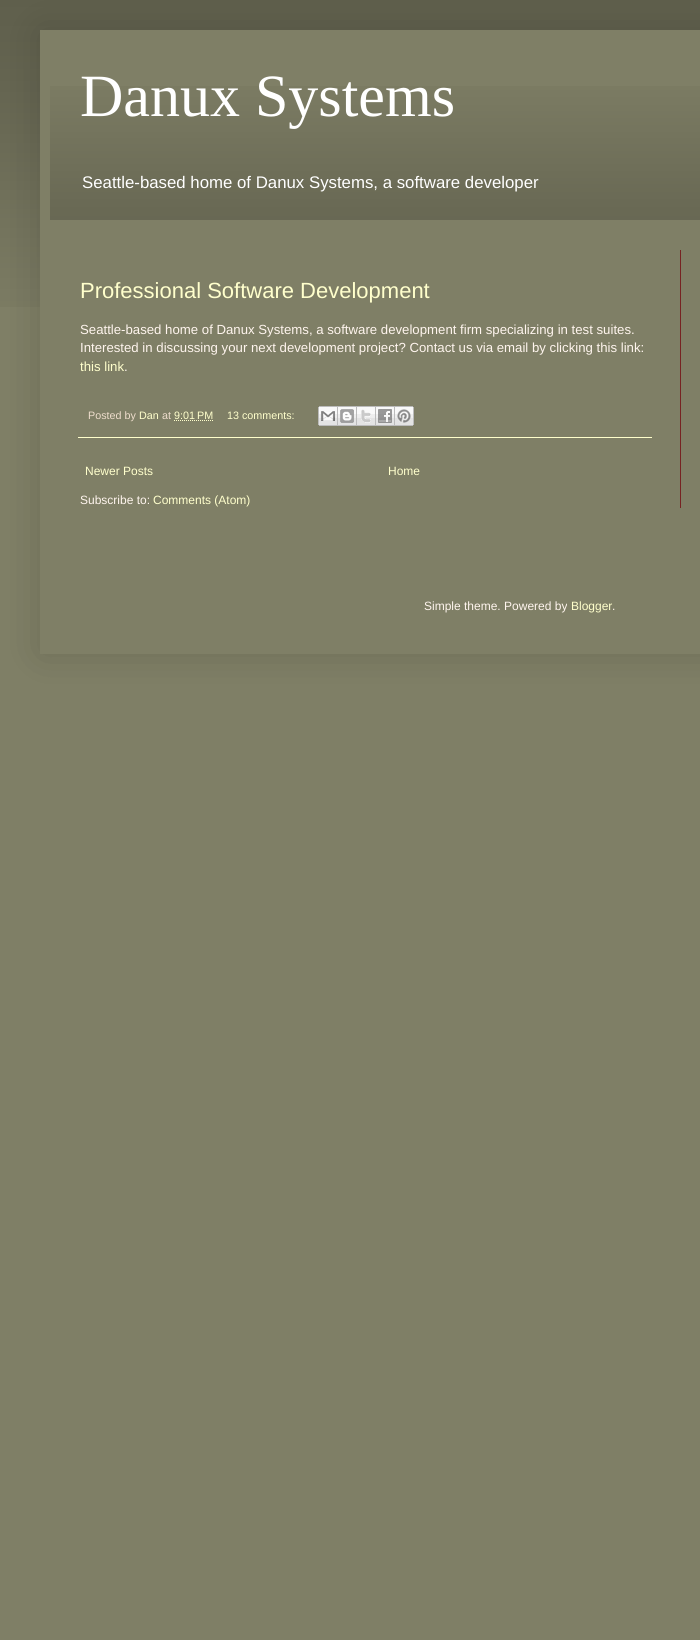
import math
import cairo

surface = cairo.ImageSurface(cairo.Format.RGB24, 700, 1640)
ctx = cairo.Context(surface)
options = cairo.FontOptions()
options.set_hint_metrics(cairo.HintMetrics.OFF)
options.set_hint_style(cairo.HintStyle.NONE)
ctx.set_font_options(options)
ctx.set_miter_limit(4)


def ink(r, g, b):
    ctx.set_source_rgb(r / 255, g / 255, b / 255)


def write(x, y, s, family, size, color, bold=False, italic=False):
    ctx.select_font_face(family, cairo.FontSlant.ITALIC if italic else cairo.FontSlant.NORMAL, cairo.FontWeight.BOLD if bold else cairo.FontWeight.NORMAL)
    ctx.set_font_size(size)
    ink(*color)
    ctx.move_to(x, y)
    ctx.show_text(s)


def block(x, y, w, h, *color):
    ink(*color)
    ctx.rectangle(x, y, w, h)
    ctx.fill()


def round_path(x, y, w, h, r):
    ctx.new_sub_path()
    for i, (u, v) in enumerate([(x + w - r, y + h - r), (x + r, y + h - r), (x + r, y + r), (x + w - r, y + r)]):
        ctx.arc(u, v, r, i * math.pi / 2, (i + 1) * math.pi / 2)
    ctx.close_path()


def blur_box(x, y, w, h, r, blur, alpha):
    ctx.push_group_with_content(cairo.Content.ALPHA)
    ctx.set_operator(cairo.Operator.SOURCE)
    for i in range(15, -16, -2):
        e = blur * i / 6
        if min(w, h) + 2 * e > 0:
            ctx.set_source_rgba(0, 0, 0, alpha * math.erfc((i - 1) / 8.5) / 2)
            round_path(x - e, y - e, w + 2 * e, h + 2 * e, max(0, min(r + e + blur * .6, min(w, h) / 2 + e)))
            ctx.fill()
    ctx.mask(ctx.pop_group())


def paste(path, x, y, w, h):
    ctx.save()
    ctx.set_source_surface(cairo.ImageSurface.create_from_png(path), x, y)
    ctx.rectangle(x, y, w, h)
    ctx.fill()
    ctx.restore()


s1 = dict(family="Liberation Serif", size=60, color=(255, 255, 255))
s2 = dict(family="Liberation Sans", size=16.8, color=(255, 255, 255))
s3 = dict(family="Liberation Sans", size=22, color=(255, 255, 204))
s4 = dict(family="Liberation Sans", size=13.2, color=(255, 245, 238))
s5 = dict(family="Liberation Sans", size=13.2, color=(255, 255, 204))
s6 = dict(family="Liberation Sans", size=10.75, color=(238, 221, 204))
s7 = dict(family="Liberation Sans", size=10.75, color=(255, 255, 204))
s8 = dict(family="Liberation Sans", size=12, color=(255, 255, 204))
s9 = dict(family="Liberation Sans", size=12, color=(255, 245, 238))

ink(127, 127, 102)
ctx.paint()
paste("pic1.png", 0, 0, 700, 307)
ink(0, 0, 0)
blur_box(40, 30, 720, 624, 0, 20, 0.15)
block(40, 30, 660, 624, 127, 127, 102)
paste("pic2.png", 50, 86, 650, 134)
write(80, 116, "Danux Systems", **s1)
write(82, 188, "Seattle-based home of Danux Systems, a software developer", **s2)
write(80, 298, "Professional Software Development", **s3)
write(80, 334, "Seattle-based home of Danux Systems, a software development firm specializing in test suites.", **s4)
write(80, 352, "Interested in discussing your next development project? Contact us via email by clicking this link:", **s4)
write(80, 371, "this link", **s5)
write(124, 371, ".", **s4)
block(78, 437, 574, 1, 255, 255, 204)
write(88, 419, "Posted by", **s6)
write(139, 419, "Dan", **s7)
write(162, 419, "at", **s6)
write(174, 419, "9:01 PM", **s7)
ctx.new_path()
ctx.move_to(174, 420.5)
ctx.line_to(213, 420.5)
ctx.set_line_width(1)
ctx.set_dash([1, 1])
ctx.stroke()
write(227, 419, "13 comments:", **s7)
paste("pic3.png", 318, 406, 20, 20)
paste("pic4.png", 338, 406, 19, 20)
paste("pic5.png", 357, 406, 19, 20)
paste("pic6.png", 376, 406, 19, 20)
paste("pic7.png", 395, 406, 19, 20)
write(85, 475, "Newer Posts", **s8)
write(388, 475, "Home", **s8)
write(80, 504, "Subscribe to:", **s9)
write(153, 504, "Comments (Atom)", **s8)
block(680, 250, 1, 258, 119, 34, 34)
write(424, 610, "Simple theme. Powered by", **s9)
write(571, 610, "Blogger", **s8)
write(612, 610, ".", **s9)
surface.write_to_png("screenshot.png")
